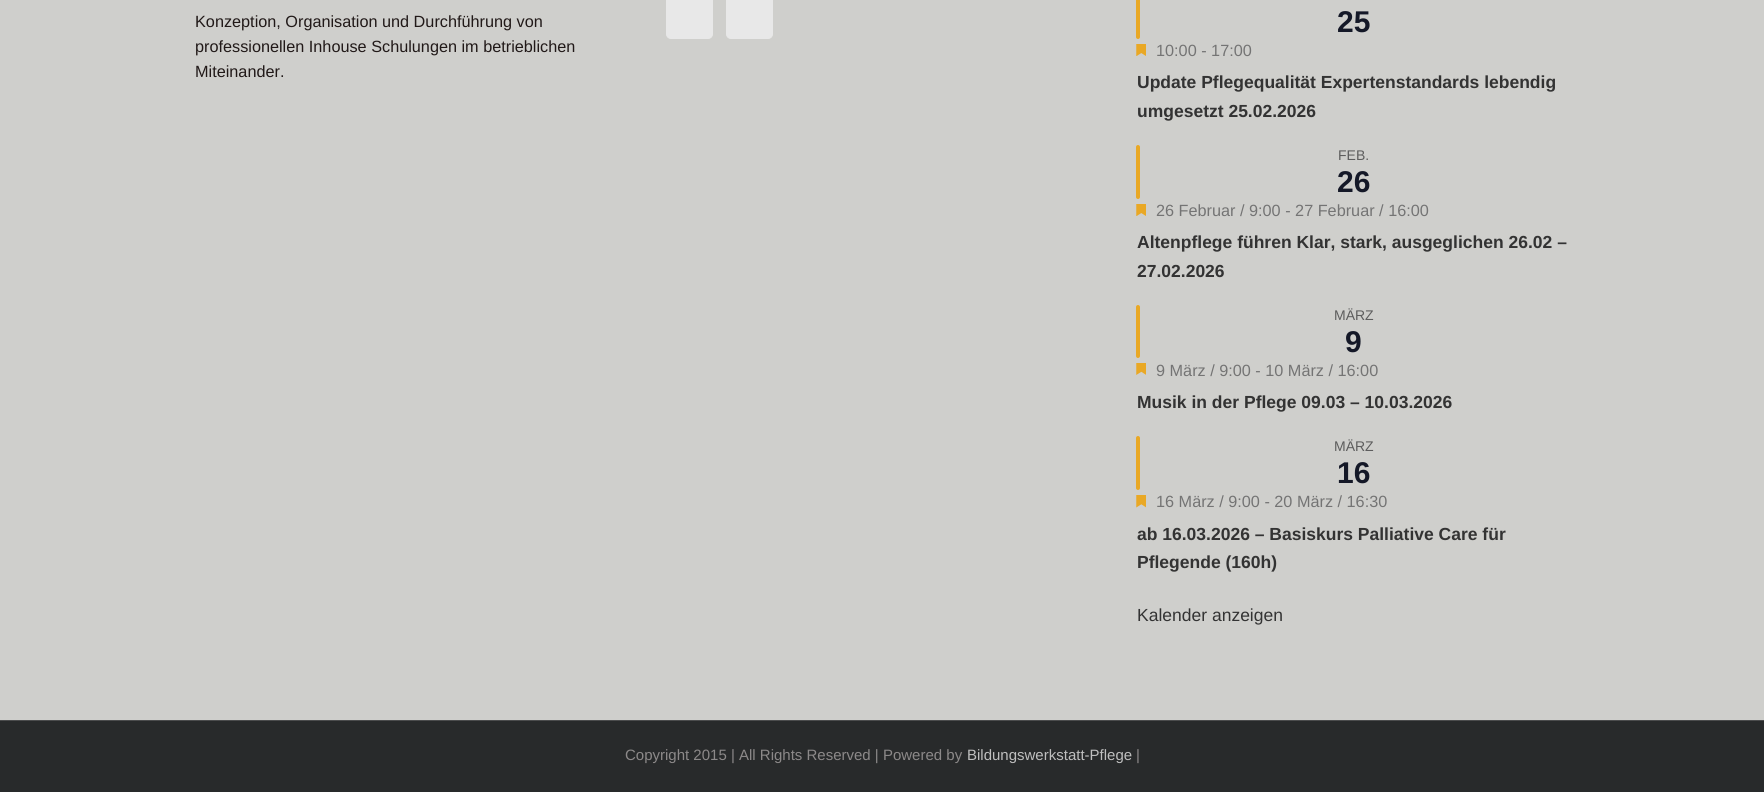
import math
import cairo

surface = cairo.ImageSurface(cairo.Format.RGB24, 1764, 792)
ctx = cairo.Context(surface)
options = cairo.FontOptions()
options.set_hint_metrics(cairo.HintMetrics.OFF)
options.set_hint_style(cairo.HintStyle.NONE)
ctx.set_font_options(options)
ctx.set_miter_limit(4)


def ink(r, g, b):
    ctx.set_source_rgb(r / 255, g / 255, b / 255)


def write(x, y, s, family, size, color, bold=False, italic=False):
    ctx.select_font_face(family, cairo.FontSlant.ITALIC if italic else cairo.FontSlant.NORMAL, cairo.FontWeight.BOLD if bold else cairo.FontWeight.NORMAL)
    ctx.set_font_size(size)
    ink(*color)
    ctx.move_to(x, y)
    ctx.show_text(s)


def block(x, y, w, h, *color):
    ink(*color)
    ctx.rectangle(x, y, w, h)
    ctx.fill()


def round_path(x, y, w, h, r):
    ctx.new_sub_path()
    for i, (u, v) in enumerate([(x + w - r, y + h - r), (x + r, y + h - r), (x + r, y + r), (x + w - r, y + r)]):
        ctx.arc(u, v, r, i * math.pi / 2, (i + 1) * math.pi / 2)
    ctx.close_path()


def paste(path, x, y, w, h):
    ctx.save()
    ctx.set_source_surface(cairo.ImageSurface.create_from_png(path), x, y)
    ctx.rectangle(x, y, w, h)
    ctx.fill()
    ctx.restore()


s1 = dict(family="Liberation Sans", size=16.25, color=(33, 25, 24))
s2 = dict(family="Liberation Sans", size=30, color=(20, 24, 39), bold=True)
s3 = dict(family="Liberation Sans", size=16.25, color=(116, 116, 116))
s4 = dict(family="Liberation Sans", size=17.5, color=(51, 51, 51), bold=True)
s5 = dict(family="Liberation Sans", size=14, color=(93, 93, 93))
s6 = dict(family="Liberation Sans", size=17.5, color=(51, 51, 51))
s7 = dict(family="Liberation Sans", size=15, color=(140, 137, 137))
s8 = dict(family="Liberation Sans", size=15, color=(191, 191, 191))

ink(207, 207, 204)
ctx.paint()
write(195, 27, "Konzeption, Organisation und Durchführung von", **s1)
write(195, 52, "professionellen Inhouse Schulungen im betrieblichen", **s1)
write(195, 77, "Miteinander.", **s1)
ink(232, 232, 232)
round_path(666.5, -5.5, 46, 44, 4.5)
ctx.fill_preserve()
ctx.set_line_width(1)
ctx.stroke()
round_path(726.5, -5.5, 46, 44, 4.5)
ctx.fill_preserve()
ctx.stroke()
ink(233, 168, 37)
round_path(1136, -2, 4, 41, 2)
ctx.fill()
write(1337, 32, "25", **s2)
paste("pic1.png", 1136, 44, 10, 12)
write(1156, 56, "10:00 - 17:00", **s3)
write(1137, 88, "Update Pflegequalität Expertenstandards lebendig", **s4)
write(1137, 117, "umgesetzt 25.02.2026", **s4)
ink(233, 168, 37)
round_path(1136, 145, 4, 54, 2)
ctx.fill()
write(1338, 160, "FEB.", **s5)
write(1337, 192, "26", **s2)
paste("pic1.png", 1136, 204, 10, 12)
write(1156, 216, "26 Februar / 9:00 - 27 Februar / 16:00", **s3)
write(1137, 248, "Altenpflege führen Klar, stark, ausgeglichen 26.02 –", **s4)
write(1137, 277, "27.02.2026", **s4)
ink(233, 168, 37)
round_path(1136, 305, 4, 53, 2)
ctx.fill()
write(1334, 320, "MÄRZ", **s5)
write(1345, 352, "9", **s2)
paste("pic2.png", 1136, 363, 10, 12)
write(1156, 376, "9 März / 9:00 - 10 März / 16:00", **s3)
write(1137, 408, "Musik in der Pflege 09.03 – 10.03.2026", **s4)
ink(233, 168, 37)
round_path(1136, 436, 4, 54, 2)
ctx.fill()
write(1334, 451, "MÄRZ", **s5)
write(1337, 483, "16", **s2)
paste("pic3.png", 1136, 495, 10, 13)
write(1156, 507, "16 März / 9:00 - 20 März / 16:30", **s3)
write(1137, 540, "ab 16.03.2026 – Basiskurs Palliative Care für", **s4)
write(1137, 568, "Pflegende (160h)", **s4)
write(1137, 621, "Kalender anzeigen", **s6)
block(0, 721, 1764, 71, 40, 42, 43)
block(0, 720, 1764, 1, 75, 76, 77)
write(625, 760, "Copyright 2015 | All Rights Reserved | Powered by", **s7)
write(967, 760, "Bildungswerkstatt-Pflege", **s8)
write(1136, 760, "|", **s7)
surface.write_to_png("screenshot.png")
